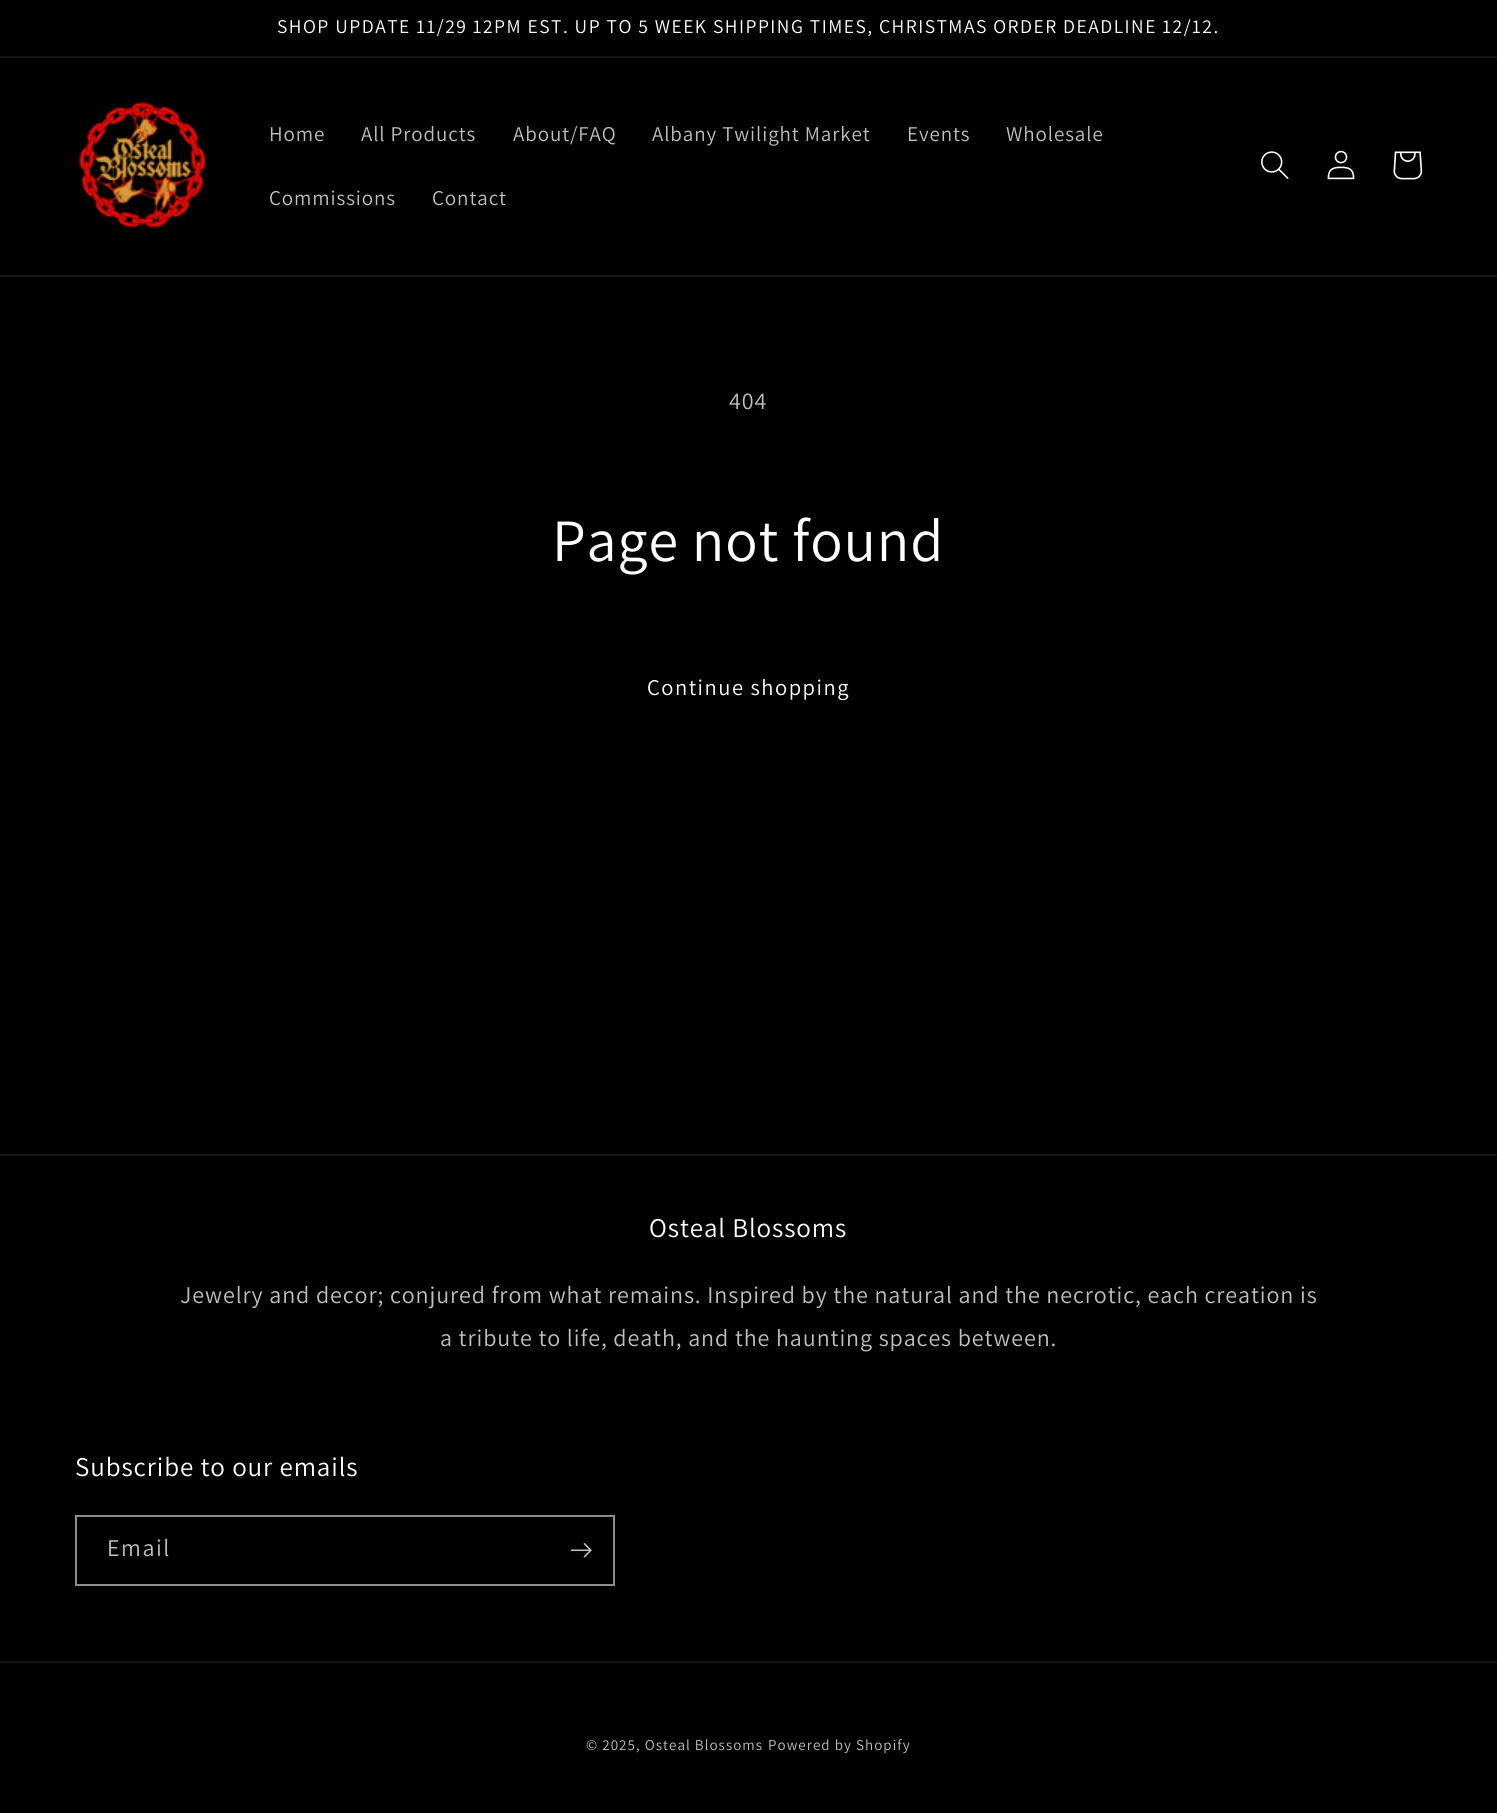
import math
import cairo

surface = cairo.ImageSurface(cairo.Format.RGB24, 1497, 1813)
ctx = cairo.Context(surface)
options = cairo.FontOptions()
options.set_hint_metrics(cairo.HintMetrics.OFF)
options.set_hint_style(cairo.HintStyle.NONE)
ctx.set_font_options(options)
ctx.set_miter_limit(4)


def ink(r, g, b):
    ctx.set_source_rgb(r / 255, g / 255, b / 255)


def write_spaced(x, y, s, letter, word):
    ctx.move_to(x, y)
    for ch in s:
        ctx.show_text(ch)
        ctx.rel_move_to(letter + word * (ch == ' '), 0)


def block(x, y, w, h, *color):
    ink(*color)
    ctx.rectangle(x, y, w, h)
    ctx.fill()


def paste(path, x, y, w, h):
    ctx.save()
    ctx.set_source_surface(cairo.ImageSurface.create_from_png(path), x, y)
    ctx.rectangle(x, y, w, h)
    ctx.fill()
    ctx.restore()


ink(0, 0, 0)
ctx.paint()
block(0, 56, 1497, 2, 20, 20, 20)
ctx.select_font_face("Assistant")
ctx.set_font_size(19.5)
ink(255, 255, 255)
write_spaced(277, 33, "SHOP UPDATE 11/29 12PM EST. UP TO 5 WEEK SHIPPING TIMES, CHRISTMAS ORDER DEADLINE 12/12.", 1.5, 0)
block(0, 275, 1497, 2, 20, 20, 20)
paste("pic1.png", 79, 101, 127, 128)
ctx.set_font_size(21)
ink(191, 191, 191)
write_spaced(269, 141, "Home", 0.9, 0)
write_spaced(361, 141, "All Products", 0.9, 0)
write_spaced(513, 141, "About/FAQ", 0.9, 0)
write_spaced(652, 141, "Albany Twilight Market", 0.9, 0)
write_spaced(907, 141, "Events", 0.9, 0)
write_spaced(1006, 141, "Wholesale", 0.9, 0)
write_spaced(269, 205, "Commissions", 0.9, 0)
write_spaced(432, 205, "Contact", 0.9, 0)
paste("pic2.png", 1261, 151, 28, 28)
paste("pic3.png", 1327, 150, 28, 30)
paste("pic4.png", 1393, 151, 30, 29)
ctx.set_font_size(24)
write_spaced(729, 409, "404", 0.9, 0)
ctx.set_font_size(60)
ink(255, 255, 255)
write_spaced(552, 561, "Page not found", 0.9, 0)
ctx.set_font_size(22.5)
write_spaced(647, 695, "Continue shopping", 1.5, 0)
block(0, 1154, 1497, 2, 20, 20, 20)
ctx.set_font_size(27)
ink(255, 255, 255)
write_spaced(649, 1237, "Osteal Blossoms", 0.9, 0)
ctx.set_font_size(24)
ink(191, 191, 191)
write_spaced(180, 1303, "Jewelry and decor; conjured from what remains. Inspired by the natural and the necrotic, each creation is", 0.9, 0)
write_spaced(440, 1346, "a tribute to life, death, and the haunting spaces between.", 0.9, 0)
ctx.set_font_size(27)
ink(255, 255, 255)
write_spaced(75, 1476, "Subscribe to our emails", 0.9, 0)
ctx.rectangle(76, 1516, 538, 69)
ink(140, 140, 140)
ctx.stroke()
ctx.set_font_size(24)
ink(191, 191, 191)
write_spaced(107, 1556, "Email", 1.5, 0)
paste("pic5.png", 570, 1543, 22, 15)
block(0, 1661, 1497, 2, 20, 20, 20)
ctx.set_font_size(15)
ink(191, 191, 191)
write_spaced(586, 1750, "© 2025, Osteal Blossoms", 1.05, 0)
write_spaced(768, 1750, "Powered by Shopify", 1.05, 0)
surface.write_to_png("screenshot.png")
